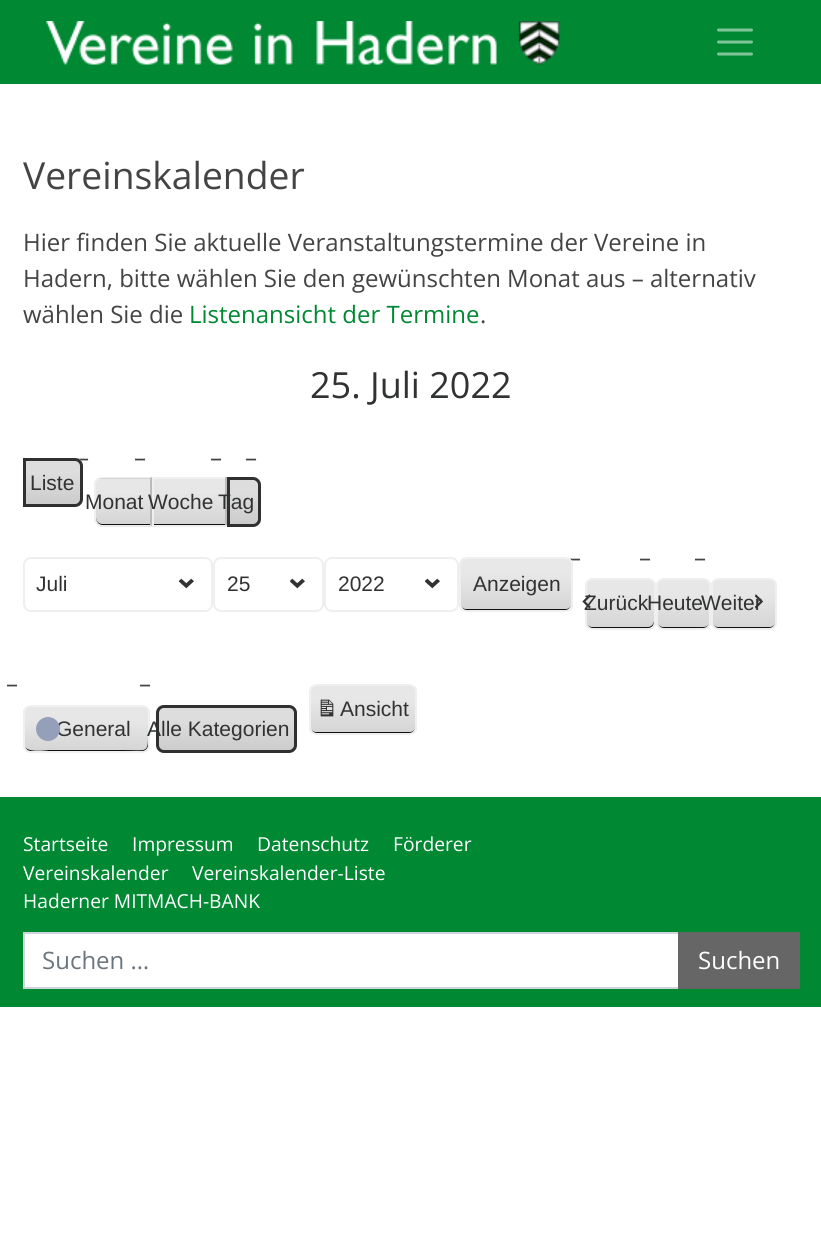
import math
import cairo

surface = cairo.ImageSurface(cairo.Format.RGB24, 821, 1244)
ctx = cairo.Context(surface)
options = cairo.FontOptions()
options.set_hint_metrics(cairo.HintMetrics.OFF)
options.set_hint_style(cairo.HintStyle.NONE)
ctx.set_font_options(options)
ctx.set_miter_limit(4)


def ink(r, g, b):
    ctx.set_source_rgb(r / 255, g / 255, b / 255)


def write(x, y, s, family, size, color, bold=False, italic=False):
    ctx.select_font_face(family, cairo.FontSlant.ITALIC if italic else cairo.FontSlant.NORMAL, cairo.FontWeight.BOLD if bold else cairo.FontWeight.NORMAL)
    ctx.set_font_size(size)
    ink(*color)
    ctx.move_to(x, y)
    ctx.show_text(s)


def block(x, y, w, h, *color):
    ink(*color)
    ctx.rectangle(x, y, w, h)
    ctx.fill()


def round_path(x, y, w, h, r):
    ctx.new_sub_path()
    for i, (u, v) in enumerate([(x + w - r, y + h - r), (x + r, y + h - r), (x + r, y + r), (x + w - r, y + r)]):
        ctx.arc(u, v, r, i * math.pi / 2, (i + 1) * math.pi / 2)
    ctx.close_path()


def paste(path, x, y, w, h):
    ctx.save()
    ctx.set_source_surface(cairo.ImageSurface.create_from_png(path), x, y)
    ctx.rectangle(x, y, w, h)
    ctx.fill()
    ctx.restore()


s1 = dict(family="Open Sans", size=37.25, color=(68, 68, 68))
s2 = dict(family="Open Sans", size=24, color=(68, 68, 68))
s3 = dict(family="Open Sans", size=24, color=(0, 136, 51))
s4 = dict(family="Open Sans", size=36, color=(49, 50, 51))
s5 = dict(family="Liberation Sans", size=21, color=(49, 50, 51))
s6 = dict(family="Open Sans", size=19.25, color=(255, 255, 255))
s7 = dict(family="Open Sans", size=24, color=(108, 117, 125))
s8 = dict(family="Open Sans", size=24, color=(255, 255, 255))

ink(255, 255, 255)
ctx.paint()
block(0, 0, 821, 84, 0, 136, 51)
paste("pic1.png", 46, 21, 514, 44)
ctx.new_path()
ctx.move_to(718.5, 30)
ctx.line_to(751.5, 30)
ctx.move_to(718.5, 42)
ctx.line_to(751.5, 42)
ctx.move_to(718.5, 54)
ctx.line_to(751.5, 54)
ink(128, 196, 153)
ctx.set_line_width(3)
ctx.set_line_cap(cairo.LineCap.ROUND)
ctx.stroke()
write(23, 189, "Vereinskalender", **s1)
write(23, 251, "Hier finden Sie aktuelle Veranstaltungstermine der Vereine in", **s2)
write(23, 287, "Hadern, bitte wählen Sie den gewünschten Monat aus – alternativ", **s2)
write(23, 323, "wählen Sie die", **s2)
write(189, 323, "Listenansicht der Termine", **s3)
write(480, 323, ".", **s2)
write(310, 398, "25. Juli 2022", **s4)
write(77, 466, "–", **s2)
ctx.save()
ctx.new_path()
ctx.move_to(23, 458)
ctx.line_to(75, 458)
ctx.curve_to(79.5, 458, 83, 461.5, 83, 466)
ctx.line_to(83, 499)
ctx.curve_to(83, 503.5, 79.5, 507, 75, 507)
ctx.line_to(23, 507)
ctx.close_path()
ctx.clip()
gradient = cairo.LinearGradient(53, 506, 53, 459)
gradient.add_color_stop_rgba(0, 0.784, 0.784, 0.784, 0.95)
gradient.add_color_stop_rgba(0.7, 0.859, 0.859, 0.859, 0.95)
ctx.set_source(gradient)
ctx.rectangle(26, 459, 57, 47)
ctx.fill()
ctx.restore()
ctx.new_path()
ctx.move_to(24, 459)
ctx.line_to(75, 459)
ctx.curve_to(79, 459, 82, 462, 82, 466)
ctx.line_to(82, 499)
ctx.curve_to(82, 503, 79, 506, 75, 506)
ctx.line_to(24, 506)
ctx.close_path()
ink(227, 227, 227)
ctx.set_line_width(2)
ctx.set_line_cap(cairo.LineCap.BUTT)
ctx.stroke()
ctx.new_path()
ctx.move_to(24.5, 459.5)
ctx.line_to(75, 459.5)
ctx.curve_to(78.5, 459.5, 81.5, 462.5, 81.5, 466)
ctx.line_to(81.5, 499)
ctx.curve_to(81.5, 502.5, 78.5, 505.5, 75, 505.5)
ctx.line_to(24.5, 505.5)
ctx.close_path()
ink(47, 48, 48)
ctx.set_line_width(3)
ctx.stroke()
write(30, 490, "Liste", **s5)
ctx.save()
ctx.new_path()
ctx.move_to(103, 477)
ctx.line_to(152, 477)
ctx.line_to(152, 527)
ctx.line_to(103, 527)
ctx.curve_to(98.5, 527, 95, 523.5, 95, 519)
ctx.line_to(95, 485)
ctx.curve_to(95, 480.5, 98.5, 477, 103, 477)
ctx.close_path()
ctx.clip()
gradient = cairo.LinearGradient(123, 479, 123, 432)
gradient.add_color_stop_rgba(0, 0.831, 0.831, 0.831, 1)
gradient.add_color_stop_rgba(0.7, 0.906, 0.906, 0.906, 1)
ctx.set_source(gradient)
ctx.rectangle(95, 477, 57, 2)
ctx.fill()
gradient = cairo.LinearGradient(123, 525, 123, 479)
gradient.add_color_stop_rgba(0, 0.831, 0.831, 0.831, 1)
gradient.add_color_stop_rgba(0.7, 0.906, 0.906, 0.906, 1)
ctx.set_source(gradient)
ctx.rectangle(95, 479, 55, 46)
ctx.fill()
gradient = cairo.LinearGradient(123, 572, 123, 525)
gradient.add_color_stop_rgba(0, 0.831, 0.831, 0.831, 1)
gradient.add_color_stop_rgba(0.7, 0.906, 0.906, 0.906, 1)
ctx.set_source(gradient)
ctx.rectangle(95, 525, 57, 2)
ctx.fill()
ctx.restore()
ink(15, 15, 15)
ctx.new_path()
ctx.move_to(96, 518)
ctx.line_to(96, 519)
ctx.curve_to(96, 522, 99, 525, 102, 525)
ctx.line_to(150, 525)
ctx.line_to(150, 524)
ctx.line_to(102, 524)
ctx.curve_to(99, 524, 96, 521, 96, 518)
ctx.close_path()
ctx.fill()
ink(239, 239, 239)
ctx.new_path()
ctx.move_to(102, 477)
ctx.curve_to(100, 477, 98, 478, 96, 479)
ctx.line_to(98, 480)
ctx.curve_to(99, 479, 100, 478, 102, 478)
ctx.line_to(150, 478)
ctx.line_to(152, 477)
ctx.close_path()
ctx.fill()
ink(187, 187, 187)
ctx.new_path()
ctx.move_to(152, 477)
ctx.line_to(152, 526)
ctx.line_to(150, 525)
ctx.line_to(150, 478)
ctx.close_path()
ctx.fill()
ink(239, 239, 239)
ctx.new_path()
ctx.move_to(151, 526)
ctx.line_to(102, 526)
ctx.curve_to(100, 526, 98, 525, 97, 524)
ctx.line_to(98, 523)
ctx.curve_to(99, 524, 100, 525, 102, 525)
ctx.line_to(150, 525)
ctx.close_path()
ctx.fill()
ctx.new_path()
ctx.move_to(94, 482)
ctx.line_to(96, 479)
ctx.line_to(98, 480)
ctx.curve_to(97, 481, 96, 483, 96, 484)
ctx.line_to(96, 519)
ctx.curve_to(96, 520, 97, 522, 98, 523)
ctx.line_to(97, 524)
ctx.line_to(94, 521)
ctx.close_path()
ctx.fill()
write(85, 509, "Monat", **s5)
write(134, 466, "–", **s2)
gradient = cairo.LinearGradient(189, 525, 189, 479)
gradient.add_color_stop_rgba(0, 0.831, 0.831, 0.831, 1)
gradient.add_color_stop_rgba(0.7, 0.906, 0.906, 0.906, 1)
ctx.set_source(gradient)
ctx.rectangle(154, 479, 71, 45)
ctx.fill()
block(153, 524, 72, 1, 15, 15, 15)
block(152, 477, 75, 2, 239, 239, 239)
block(225, 477, 2, 50, 187, 187, 187)
block(152, 525, 75, 2, 239, 239, 239)
block(152, 477, 2, 50, 239, 239, 239)
write(148, 509, "Woche", **s5)
write(210, 466, "–", **s2)
ctx.save()
ctx.new_path()
ctx.move_to(227, 477)
ctx.line_to(253, 477)
ctx.curve_to(257.5, 477, 261, 480.5, 261, 485)
ctx.line_to(261, 519)
ctx.curve_to(261, 523.5, 257.5, 527, 253, 527)
ctx.line_to(227, 527)
ctx.close_path()
ctx.clip()
gradient = cairo.LinearGradient(244, 525, 244, 479)
gradient.add_color_stop_rgba(0, 0.796, 0.796, 0.796, 1)
gradient.add_color_stop_rgba(0.7, 0.867, 0.867, 0.867, 1)
ctx.set_source(gradient)
ctx.rectangle(230, 479, 31, 46)
ctx.fill()
ctx.restore()
ctx.new_path()
ctx.move_to(228, 478)
ctx.line_to(253, 478)
ctx.curve_to(257, 478, 260, 481, 260, 485)
ctx.line_to(260, 519)
ctx.curve_to(260, 523, 257, 526, 253, 526)
ctx.line_to(228, 526)
ctx.close_path()
ink(227, 227, 227)
ctx.set_line_width(2)
ctx.stroke()
write(218, 509, "Tag", **s5)
ctx.new_path()
ctx.move_to(228.5, 478.5)
ctx.line_to(253, 478.5)
ctx.curve_to(256.5, 478.5, 259.5, 481.5, 259.5, 485)
ctx.line_to(259.5, 519)
ctx.curve_to(259.5, 522.5, 256.5, 525.5, 253, 525.5)
ctx.line_to(228.5, 525.5)
ctx.close_path()
ink(47, 48, 48)
ctx.set_line_width(3)
ctx.stroke()
write(245, 466, "–", **s2)
paste("pic2.png", 179, 578, 15, 11)
round_path(24, 558, 188, 53, 7)
ink(239, 239, 239)
ctx.set_line_width(2)
ctx.stroke()
write(36, 591, "Juli", **s5)
paste("pic2.png", 290, 578, 15, 11)
round_path(214, 558, 109, 53, 7)
ink(239, 239, 239)
ctx.stroke()
write(227, 591, "25", **s5)
paste("pic2.png", 425, 578, 15, 11)
round_path(325, 558, 133, 53, 7)
ink(239, 239, 239)
ctx.stroke()
write(338, 591, "2022", **s5)
write(569, 566, "–", **s2)
ctx.save()
round_path(459, 557, 114, 55, 8)
ctx.clip()
gradient = cairo.LinearGradient(516, 611, 516, 558)
gradient.add_color_stop_rgba(0, 0.824, 0.824, 0.824, 0.95)
gradient.add_color_stop_rgba(0.7, 0.902, 0.902, 0.902, 0.95)
ctx.set_source(gradient)
ctx.rectangle(459, 558, 114, 53)
ctx.fill()
ctx.restore()
ink(15, 15, 15)
ctx.new_path()
ctx.move_to(461, 606)
ctx.curve_to(462, 609, 464, 611, 467, 611)
ctx.line_to(566, 611)
ctx.curve_to(569, 611, 572, 608, 572, 605)
ctx.line_to(572, 603)
ctx.curve_to(572, 606, 569, 609, 566, 609)
ctx.line_to(466, 609)
ctx.curve_to(464, 609, 462, 608, 461, 606)
ctx.close_path()
ctx.fill()
round_path(460, 558, 112, 53, 7)
ink(239, 239, 239)
ctx.stroke()
write(473, 591, "Anzeigen", **s5)
ctx.save()
round_path(585, 578, 71, 52, 8)
ctx.clip()
gradient = cairo.LinearGradient(620, 629, 620, 579)
gradient.add_color_stop_rgba(0, 0.831, 0.831, 0.831, 1)
gradient.add_color_stop_rgba(0.7, 0.906, 0.906, 0.906, 1)
ctx.set_source(gradient)
ctx.rectangle(585, 579, 71, 50)
ctx.fill()
ctx.restore()
ink(15, 15, 15)
ctx.new_path()
ctx.move_to(587, 624)
ctx.curve_to(588, 627, 590, 629, 593, 629)
ctx.line_to(648, 629)
ctx.curve_to(651, 629, 654, 626, 654, 623)
ctx.line_to(654, 621)
ctx.curve_to(654, 624, 651, 627, 648, 627)
ctx.line_to(592, 627)
ctx.curve_to(590, 627, 588, 626, 587, 624)
ctx.close_path()
ctx.fill()
round_path(586, 579, 69, 50, 7)
ink(239, 239, 239)
ctx.stroke()
paste("pic3.png", 582, 594, 9, 15)
write(584, 610, "Zurück", **s5)
write(639, 566, "–", **s2)
ctx.save()
round_path(656, 578, 55, 52, 8)
ctx.clip()
gradient = cairo.LinearGradient(683, 629, 683, 579)
gradient.add_color_stop_rgba(0, 0.831, 0.831, 0.831, 1)
gradient.add_color_stop_rgba(0.7, 0.906, 0.906, 0.906, 1)
ctx.set_source(gradient)
ctx.rectangle(656, 579, 55, 50)
ctx.fill()
ctx.restore()
ink(15, 15, 15)
ctx.new_path()
ctx.move_to(657, 621)
ctx.curve_to(657, 630, 662, 629, 670, 629)
ctx.line_to(697, 629)
ctx.curve_to(705, 629, 710, 630, 710, 621)
ctx.curve_to(710, 624, 707, 627, 704, 627)
ctx.line_to(663, 627)
ctx.curve_to(660, 627, 657, 624, 657, 621)
ctx.close_path()
ctx.fill()
round_path(657, 579, 53, 50, 7)
ink(239, 239, 239)
ctx.stroke()
write(647, 610, "Heute", **s5)
write(694, 566, "–", **s2)
ctx.save()
round_path(711, 578, 66, 52, 8)
ctx.clip()
gradient = cairo.LinearGradient(744, 629, 744, 579)
gradient.add_color_stop_rgba(0, 0.831, 0.831, 0.831, 1)
gradient.add_color_stop_rgba(0.7, 0.906, 0.906, 0.906, 1)
ctx.set_source(gradient)
ctx.rectangle(711, 579, 66, 50)
ctx.fill()
ctx.restore()
ink(15, 15, 15)
ctx.new_path()
ctx.move_to(713, 624)
ctx.curve_to(714, 627, 716, 629, 719, 629)
ctx.line_to(770, 629)
ctx.curve_to(773, 629, 776, 626, 776, 623)
ctx.line_to(776, 621)
ctx.curve_to(776, 624, 773, 627, 770, 627)
ctx.line_to(718, 627)
ctx.curve_to(716, 627, 714, 626, 713, 624)
ctx.close_path()
ctx.fill()
round_path(712, 579, 64, 50, 7)
ink(239, 239, 239)
ctx.stroke()
write(701, 610, "Weiter", **s5)
paste("pic4.png", 754, 594, 10, 15)
write(6, 692, "–", **s2)
ctx.save()
round_path(23, 705, 127, 48, 8)
ctx.clip()
gradient = cairo.LinearGradient(86, 752, 86, 707)
gradient.add_color_stop_rgba(0, 0.831, 0.831, 0.831, 1)
gradient.add_color_stop_rgba(0.7, 0.906, 0.906, 0.906, 1)
ctx.set_source(gradient)
ctx.rectangle(23, 707, 127, 45)
ctx.fill()
ctx.restore()
ink(15, 15, 15)
ctx.new_path()
ctx.move_to(24, 744)
ctx.line_to(24, 746)
ctx.curve_to(24, 749, 27, 752, 30, 752)
ctx.line_to(143, 752)
ctx.curve_to(146, 752, 149, 749, 149, 746)
ctx.line_to(149, 713)
ctx.curve_to(149, 712, 149, 710, 148, 709)
ctx.line_to(148, 733)
ctx.curve_to(148, 754, 148, 750, 123, 750)
ctx.line_to(49, 750)
ctx.curve_to(48, 750, 24, 754, 24, 744)
ctx.close_path()
ctx.fill()
round_path(24, 706, 125, 46, 7)
ink(239, 239, 239)
ctx.stroke()
write(56, 736, "General", **s5)
ink(148, 160, 186)
ctx.new_path()
ctx.arc(48, 729, 12, 0, 2 * math.pi)
ctx.fill()
write(139, 692, "–", **s2)
ctx.save()
round_path(156, 705, 141, 48, 8)
ctx.clip()
gradient = cairo.LinearGradient(227, 752, 227, 707)
gradient.add_color_stop_rgba(0, 0.796, 0.796, 0.796, 1)
gradient.add_color_stop_rgba(0.7, 0.867, 0.867, 0.867, 1)
ctx.set_source(gradient)
ctx.rectangle(156, 707, 141, 45)
ctx.fill()
ctx.restore()
round_path(157, 706, 139, 46, 7)
ink(227, 227, 227)
ctx.stroke()
write(147, 736, "Alle Kategorien", **s5)
round_path(157.5, 706.5, 138, 45, 6.5)
ink(47, 48, 48)
ctx.set_line_width(3)
ctx.stroke()
ctx.save()
round_path(309, 684, 108, 51, 8)
ctx.clip()
gradient = cairo.LinearGradient(363, 734, 363, 686)
gradient.add_color_stop_rgba(0, 0.831, 0.831, 0.831, 1)
gradient.add_color_stop_rgba(0.7, 0.906, 0.906, 0.906, 1)
ctx.set_source(gradient)
ctx.rectangle(309, 686, 108, 48)
ctx.fill()
ctx.restore()
ink(15, 15, 15)
ctx.new_path()
ctx.move_to(311, 729)
ctx.curve_to(312, 732, 314, 734, 317, 734)
ctx.line_to(410, 734)
ctx.curve_to(413, 734, 416, 731, 416, 728)
ctx.line_to(416, 726)
ctx.curve_to(416, 729, 413, 732, 410, 732)
ctx.line_to(316, 732)
ctx.curve_to(314, 732, 312, 731, 311, 729)
ctx.close_path()
ctx.fill()
round_path(310, 685, 106, 49, 7)
ink(239, 239, 239)
ctx.set_line_width(2)
ctx.stroke()
paste("pic5.png", 320, 699, 14, 18)
write(340, 716, "Ansicht", **s5)
block(0, 797, 821, 210, 0, 136, 51)
write(23, 851, "Startseite", **s6)
write(132, 851, "Impressum", **s6)
write(257, 851, "Datenschutz", **s6)
write(393, 851, "Förderer", **s6)
write(23, 880, "Vereinskalender", **s6)
write(192, 880, "Vereinskalender-Liste", **s6)
write(23, 908, "Haderner MITMACH-BANK", **s6)
ctx.rectangle(24, 933, 655, 55)
ctx.fill_preserve()
ink(206, 212, 218)
ctx.stroke()
write(42, 969, "Suchen …", **s7)
block(678, 932, 122, 57, 102, 102, 102)
write(698, 969, "Suchen", **s8)
surface.write_to_png("screenshot.png")
